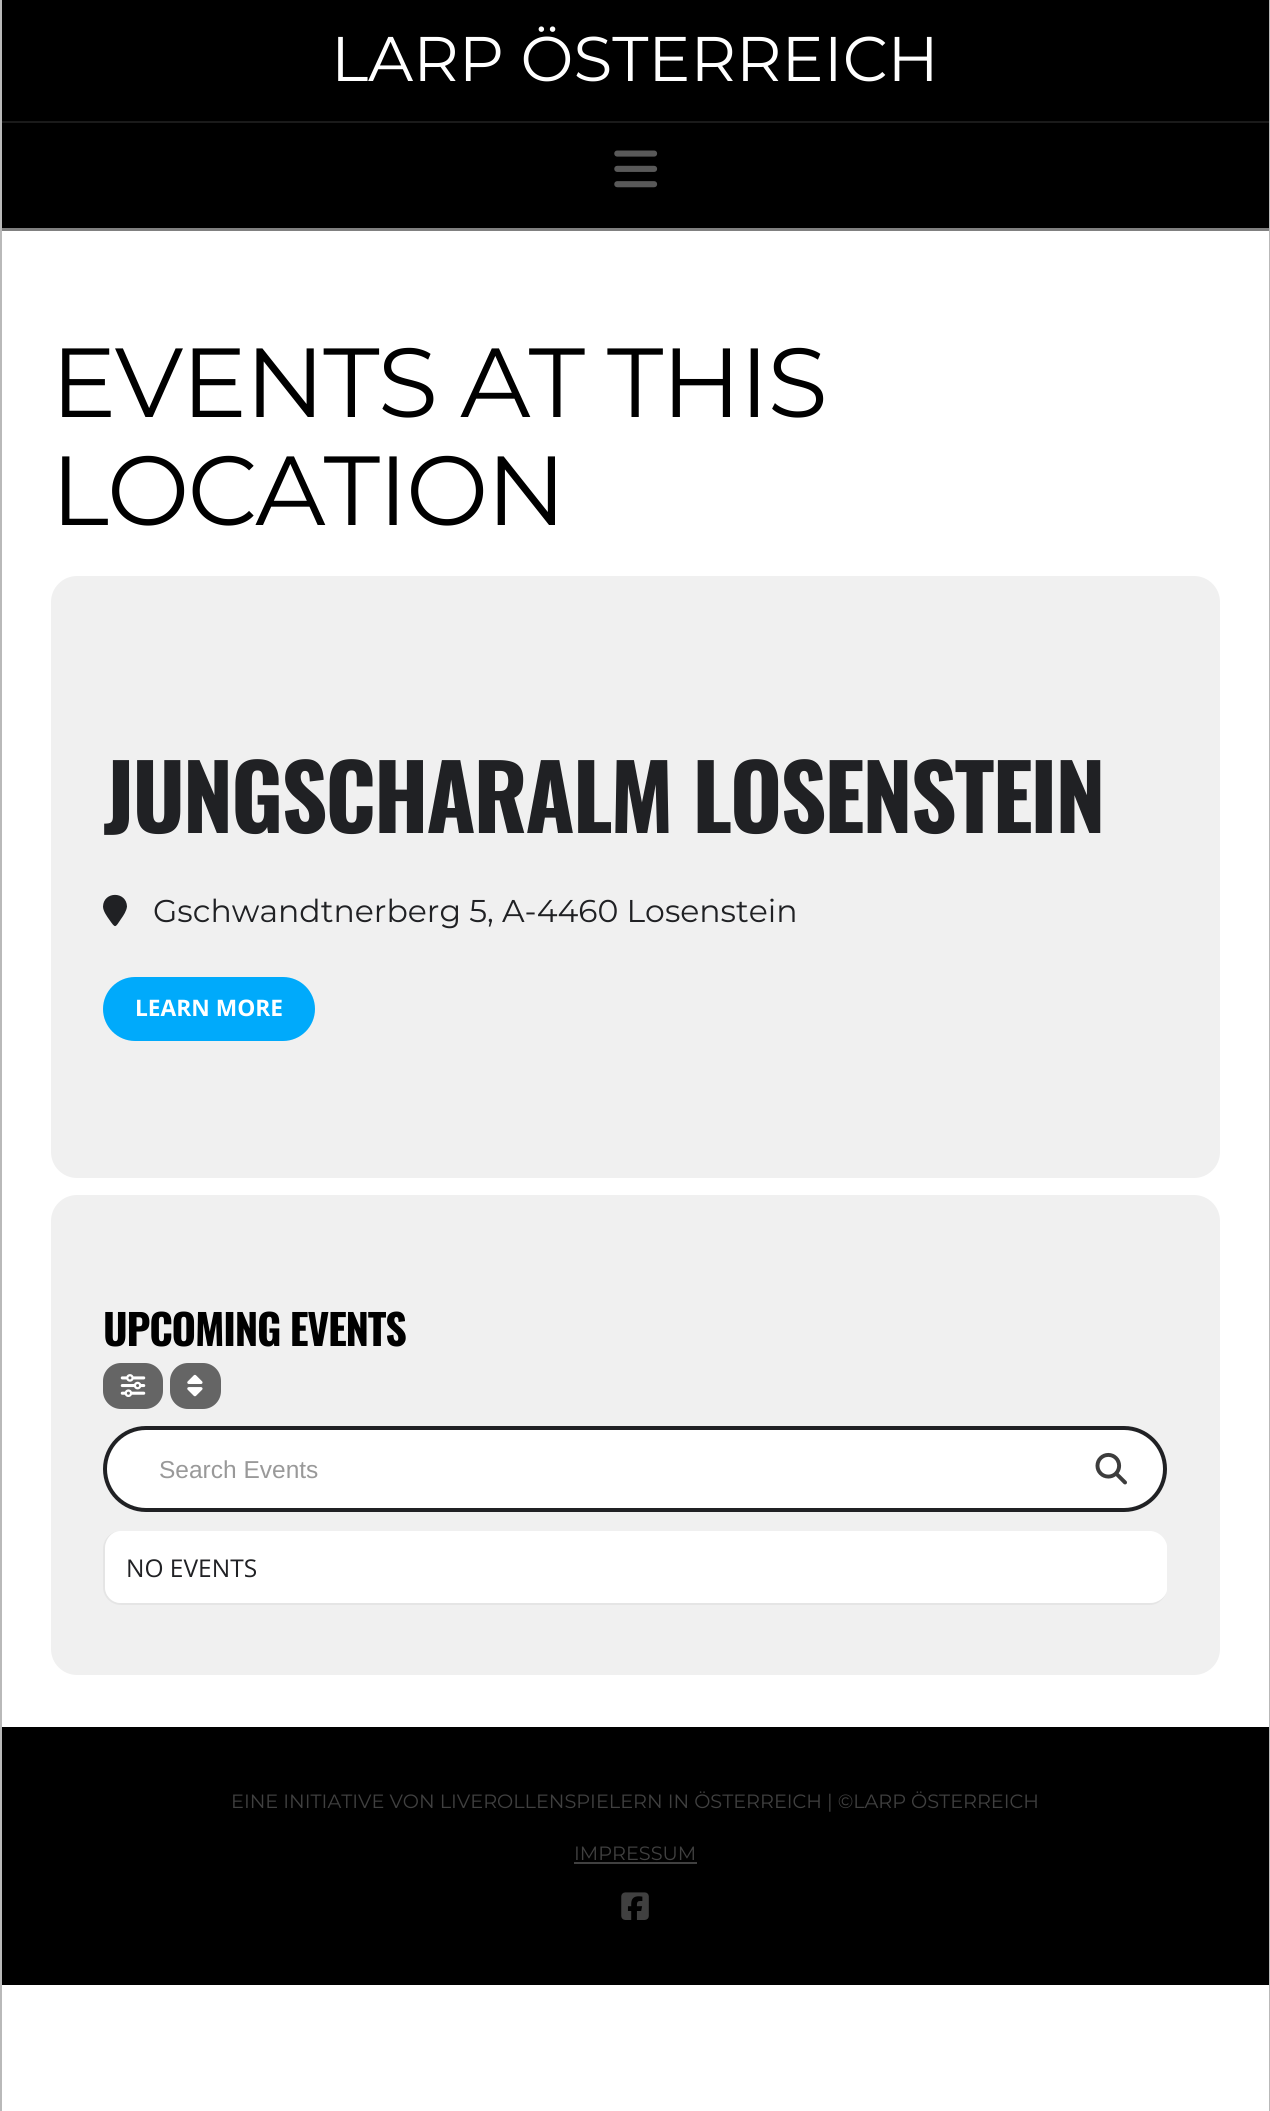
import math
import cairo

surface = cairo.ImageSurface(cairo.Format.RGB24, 1270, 2111)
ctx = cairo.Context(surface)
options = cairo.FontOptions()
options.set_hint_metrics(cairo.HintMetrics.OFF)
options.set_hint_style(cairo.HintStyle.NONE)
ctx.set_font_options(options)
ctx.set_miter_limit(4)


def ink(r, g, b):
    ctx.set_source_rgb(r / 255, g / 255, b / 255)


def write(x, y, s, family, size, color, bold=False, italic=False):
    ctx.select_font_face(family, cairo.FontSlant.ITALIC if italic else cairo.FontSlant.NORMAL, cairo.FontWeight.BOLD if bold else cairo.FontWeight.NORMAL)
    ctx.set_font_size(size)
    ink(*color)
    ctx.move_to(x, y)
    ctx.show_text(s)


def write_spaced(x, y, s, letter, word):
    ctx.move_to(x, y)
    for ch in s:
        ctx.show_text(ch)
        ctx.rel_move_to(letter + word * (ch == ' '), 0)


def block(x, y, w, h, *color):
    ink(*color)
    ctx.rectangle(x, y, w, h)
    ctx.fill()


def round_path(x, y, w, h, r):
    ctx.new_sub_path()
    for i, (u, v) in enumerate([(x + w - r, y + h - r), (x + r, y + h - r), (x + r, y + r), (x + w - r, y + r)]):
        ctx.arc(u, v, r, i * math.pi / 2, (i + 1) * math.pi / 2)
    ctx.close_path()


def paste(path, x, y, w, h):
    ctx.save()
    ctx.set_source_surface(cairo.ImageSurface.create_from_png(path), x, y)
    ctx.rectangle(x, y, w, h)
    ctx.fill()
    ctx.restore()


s1 = dict(family="Montserrat", size=63, color=(255, 255, 255))
s2 = dict(family="Montserrat", size=31.5, color=(32, 33, 36))
s3 = dict(family="Open Sans", size=22.75, color=(255, 255, 255), bold=True)
s4 = dict(family="Liberation Sans", size=24.5, color=(153, 153, 153))
s5 = dict(family="Open Sans", size=24.5, color=(32, 33, 36))
s6 = dict(family="Montserrat", size=19.25, color=(64, 64, 64))

ink(255, 255, 255)
ctx.paint()
block(1269, 0, 1, 2111, 185, 185, 185)
block(0, 0, 2, 2111, 185, 185, 185)
block(2, 0, 1267, 121, 0, 0, 0)
block(2, 121, 1267, 2, 26, 26, 26)
write(331, 81, "LARP ÖSTERREICH", **s1)
block(2, 123, 1267, 105, 0, 0, 0)
block(2, 228, 1267, 3, 128, 128, 128)
paste("pic1.png", 614, 150, 44, 38)
ctx.set_font_size(98)
ink(0, 0, 0)
write_spaced(51, 417, "EVENTS AT THIS", -1.75, 0)
write_spaced(51, 525, "LOCATION", -1.75, 0)
ink(240, 240, 240)
round_path(51, 576, 1169, 602, 26)
ctx.fill()
ctx.select_font_face("Oswald", cairo.FontSlant.NORMAL, cairo.FontWeight.BOLD)
ctx.set_font_size(90)
ink(32, 33, 36)
write_spaced(103, 833, "JUNGSCHARALM LOSENSTEIN", -2.25, 0)
ctx.new_path()
ctx.move_to(127, 906.5)
ctx.curve_to(126.5, 911, 123.5, 915.5, 121, 919)
ctx.curve_to(115, 928, 115.5, 928.5, 109.5, 920)
ctx.curve_to(107, 916.5, 103, 911, 103, 906.5)
ctx.curve_to(103.5, 891, 126.5, 891, 127, 906.5)
ctx.close_path()
ctx.fill()
write(153, 922, "Gschwandtnerberg 5, A-4460 Losenstein", **s2)
ink(0, 170, 251)
round_path(103, 977, 212, 64, 32)
ctx.fill()
write(135, 1016, "LEARN MORE", **s3)
ink(240, 240, 240)
round_path(51, 1195, 1169, 480, 26)
ctx.fill()
ctx.select_font_face("Oswald", cairo.FontSlant.NORMAL, cairo.FontWeight.BOLD)
ctx.set_font_size(42)
ink(0, 0, 0)
write_spaced(103, 1346, "UPCOMING EVENTS", -1.25, 0)
ink(101, 101, 101)
round_path(103, 1363, 60, 46, 18)
ctx.fill()
paste("pic2.png", 120, 1374, 26, 23)
round_path(170, 1363, 51, 46, 18)
ctx.fill()
paste("pic3.png", 187, 1374, 16, 23)
ink(255, 255, 255)
round_path(105, 1428, 1060, 82, 41)
ctx.fill_preserve()
ink(32, 33, 36)
ctx.set_line_width(4)
ctx.stroke()
write(159, 1478, "Search Events", **s4)
paste("pic4.png", 1095, 1452, 32, 33)
ink(229, 229, 229)
ctx.set_fill_rule(cairo.FillRule.EVEN_ODD)
ctx.new_path()
ctx.move_to(121, 1531)
ctx.line_to(1150, 1531)
ctx.curve_to(1159, 1531, 1167, 1539, 1167, 1549)
ctx.line_to(1167, 1587)
ctx.curve_to(1167, 1597, 1159, 1605, 1150, 1605)
ctx.line_to(121, 1605)
ctx.curve_to(111, 1605, 103, 1597, 103, 1587)
ctx.line_to(103, 1549)
ctx.curve_to(103, 1539, 111, 1531, 121, 1531)
ctx.close_path()
ctx.move_to(121, 1531)
ctx.line_to(1150, 1531)
ctx.curve_to(1159, 1531, 1167, 1539, 1167, 1549)
ctx.line_to(1167, 1587)
ctx.curve_to(1167, 1596, 1159, 1603, 1150, 1603)
ctx.line_to(121, 1603)
ctx.curve_to(112, 1603, 105, 1596, 105, 1587)
ctx.line_to(105, 1549)
ctx.curve_to(105, 1539, 112, 1531, 121, 1531)
ctx.close_path()
ctx.fill()
ink(255, 255, 255)
ctx.set_fill_rule(cairo.FillRule.WINDING)
ctx.new_path()
ctx.move_to(121, 1531)
ctx.curve_to(112, 1531, 105, 1539, 105, 1549)
ctx.line_to(105, 1587)
ctx.curve_to(105, 1596, 112, 1603, 121, 1603)
ctx.line_to(1150, 1603)
ctx.curve_to(1158, 1603, 1166, 1597, 1167, 1590)
ctx.line_to(1167, 1546)
ctx.curve_to(1166, 1538, 1158, 1531, 1150, 1531)
ctx.close_path()
ctx.fill()
write(126, 1577, "NO EVENTS", **s5)
block(2, 1727, 1267, 258, 0, 0, 0)
write(231, 1808, "EINE INITIATIVE VON LIVEROLLENSPIELERN IN ÖSTERREICH | ©LARP ÖSTERREICH", **s6)
write(574, 1860, "IMPRESSUM", **s6)
block(574, 1862, 123, 2, 64, 64, 64)
paste("pic5.png", 621, 1892, 28, 28)
surface.write_to_png("screenshot.png")
